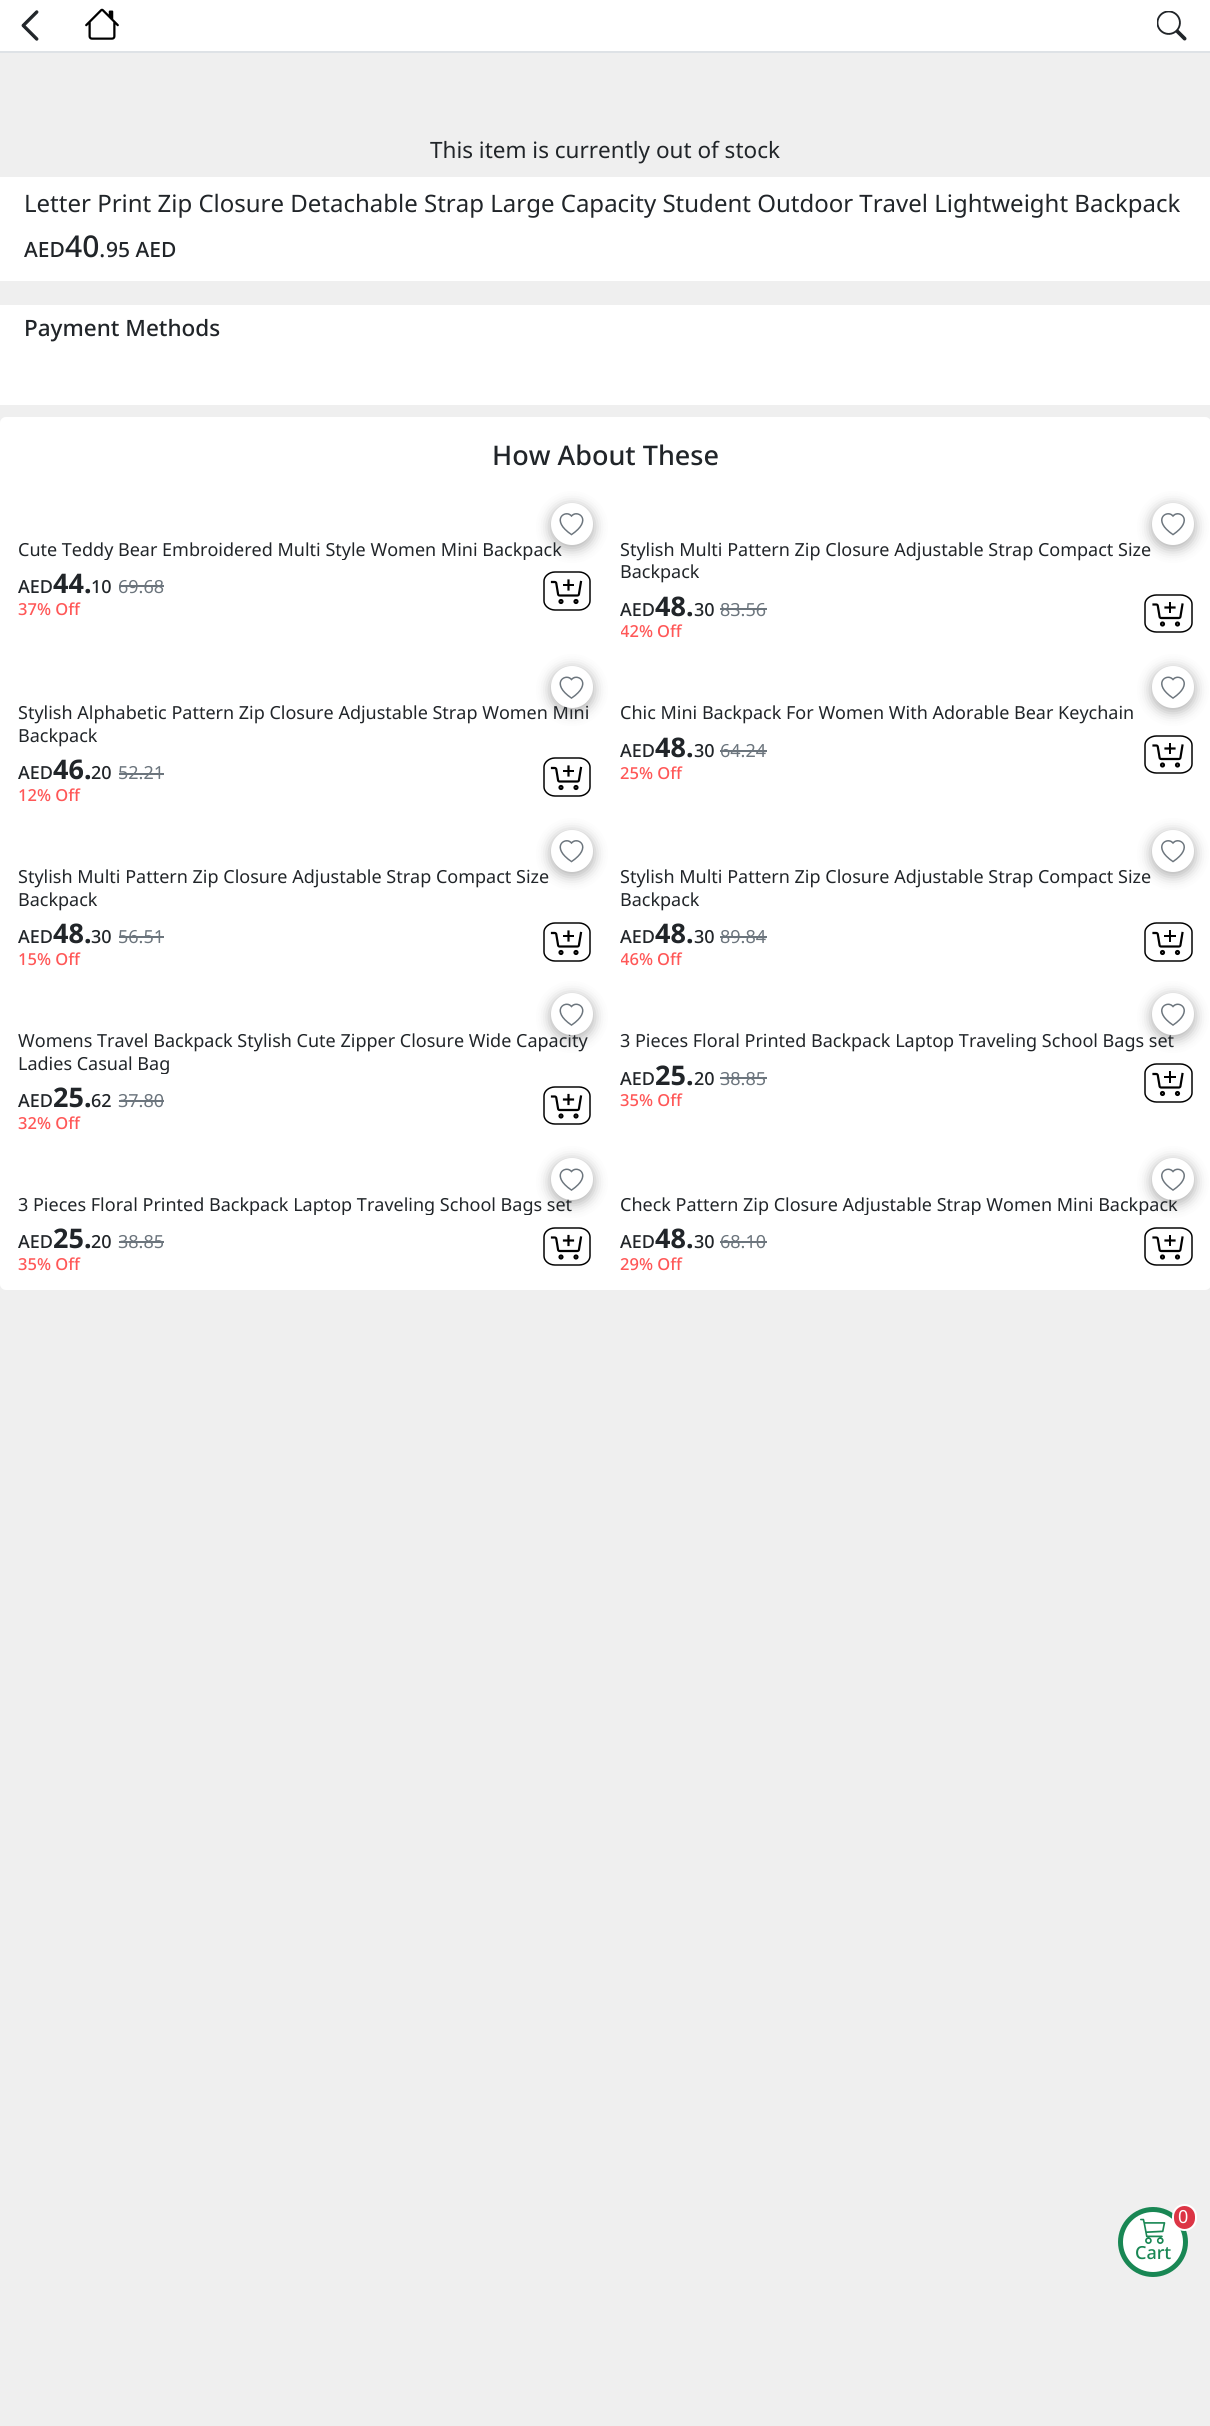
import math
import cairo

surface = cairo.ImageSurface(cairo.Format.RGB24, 1210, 2426)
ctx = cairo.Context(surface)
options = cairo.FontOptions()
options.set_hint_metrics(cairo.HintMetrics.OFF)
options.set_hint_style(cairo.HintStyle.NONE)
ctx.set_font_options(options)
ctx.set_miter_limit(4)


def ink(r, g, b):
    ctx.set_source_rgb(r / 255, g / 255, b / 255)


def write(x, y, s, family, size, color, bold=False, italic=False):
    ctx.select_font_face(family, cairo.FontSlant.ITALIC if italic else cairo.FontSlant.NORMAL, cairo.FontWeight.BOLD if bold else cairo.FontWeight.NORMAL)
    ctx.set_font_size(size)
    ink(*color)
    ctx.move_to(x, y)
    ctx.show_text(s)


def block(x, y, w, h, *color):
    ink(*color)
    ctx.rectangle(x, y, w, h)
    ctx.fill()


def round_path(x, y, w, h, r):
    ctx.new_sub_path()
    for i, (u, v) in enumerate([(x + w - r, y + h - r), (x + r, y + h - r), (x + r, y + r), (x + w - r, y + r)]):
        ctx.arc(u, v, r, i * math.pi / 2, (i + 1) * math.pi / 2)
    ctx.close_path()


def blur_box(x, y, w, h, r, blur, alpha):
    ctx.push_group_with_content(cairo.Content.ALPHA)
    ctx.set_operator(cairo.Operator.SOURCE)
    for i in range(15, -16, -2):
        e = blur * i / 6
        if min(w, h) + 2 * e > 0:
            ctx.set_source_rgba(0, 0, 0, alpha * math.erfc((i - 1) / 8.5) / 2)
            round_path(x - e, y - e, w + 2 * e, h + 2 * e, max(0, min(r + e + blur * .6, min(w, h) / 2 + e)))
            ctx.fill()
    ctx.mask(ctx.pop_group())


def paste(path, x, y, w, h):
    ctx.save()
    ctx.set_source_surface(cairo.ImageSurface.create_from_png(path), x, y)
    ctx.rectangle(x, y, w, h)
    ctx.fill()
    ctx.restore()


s1 = dict(family="Noto Sans", size=22.5, color=(33, 37, 41))
s2 = dict(family="Noto Sans", size=24, color=(33, 37, 41))
s3 = dict(family="Noto Sans Medium", size=21, color=(33, 37, 41))
s4 = dict(family="Noto Sans Medium", size=30, color=(33, 37, 41))
s5 = dict(family="Noto Sans Medium", size=22.5, color=(33, 37, 41))
s6 = dict(family="Noto Sans Medium", size=27, color=(33, 37, 41))
s7 = dict(family="Noto Sans", size=18, color=(33, 37, 41))
s8 = dict(family="Noto Sans Medium", size=18, color=(33, 37, 41))
s9 = dict(family="Noto Sans", size=27, color=(33, 37, 41), bold=True)
s10 = dict(family="Noto Sans", size=18, color=(108, 117, 125))
s11 = dict(family="Noto Sans Medium", size=16.5, color=(255, 87, 87))
s12 = dict(family="Noto Sans", size=18, color=(255, 255, 255))
s13 = dict(family="Noto Sans Medium", size=18, color=(25, 135, 84))

ink(239, 239, 239)
ctx.paint()
block(0, 0, 1210, 51, 255, 255, 255)
block(0, 51, 1210, 2, 222, 226, 230)
paste("pic1.png", 21, 10, 18, 31)
paste("pic2.png", 85, 8, 34, 32)
paste("pic3.png", 1157, 11, 30, 30)
write(430, 158, "This item is currently out of stock", **s1)
block(0, 177, 1210, 104, 255, 255, 255)
write(24, 212, "Letter Print Zip Closure Detachable Strap Large Capacity Student Outdoor Travel Lightweight Backpack", **s2)
write(24, 257, "AED", **s3)
write(65, 257, "40", **s4)
write(99, 257, ".", **s2)
write(106, 257, "95 AED", **s3)
block(0, 305, 1210, 100, 255, 255, 255)
write(24, 336, "Payment Methods", **s5)
ink(255, 255, 255)
round_path(0, 417, 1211, 873, 6)
ctx.fill()
write(492, 465, "How About These", **s6)
ink(0, 0, 0)
blur_box(551, 506, 42, 42, 21, 7, 0.35)
ctx.save()
ctx.rectangle(18, 537, 573, 23)
ctx.clip()
write(18, 556, "Cute Teddy Bear Embroidered Multi Style Women Mini Backpack", **s7)
ctx.restore()
ink(255, 255, 255)
ctx.new_path()
ctx.arc(572, 524, 21, 0, 2 * math.pi)
ctx.fill()
paste("pic4.png", 559, 513, 25, 23)
write(18, 593, "AED", **s8)
write(53, 593, "44.", **s9)
write(91, 593, "10", **s8)
write(118, 593, "69.68", **s10)
block(119, 585, 45, 2, 108, 117, 125)
write(18, 615, "37% Off", **s11)
ctx.new_path()
ctx.move_to(555, 572)
ctx.line_to(579, 572)
ctx.curve_to(585, 572, 590, 576.5, 590, 581)
ctx.line_to(590, 601)
ctx.curve_to(590, 605.5, 585, 610, 579, 610)
ctx.line_to(555, 610)
ctx.curve_to(549, 610, 544, 605.5, 544, 601)
ctx.line_to(544, 581)
ctx.curve_to(544, 576.5, 549, 572, 555, 572)
ctx.close_path()
ink(0, 0, 0)
ctx.set_line_width(1.5)
ctx.stroke()
paste("pic5.png", 550, 579, 33, 26)
ink(0, 0, 0)
blur_box(1152, 506, 42, 42, 21, 7, 0.35)
ink(255, 255, 255)
ctx.arc(1173, 524, 21, 0, 2 * math.pi)
ctx.fill()
paste("pic6.png", 1161, 513, 24, 23)
write(620, 556, "Stylish Multi Pattern Zip Closure Adjustable Strap Compact Size", **s7)
write(620, 578, "Backpack", **s7)
write(620, 616, "AED", **s8)
write(655, 616, "48.", **s9)
write(694, 616, "30", **s8)
write(720, 616, "83.56", **s10)
block(720, 608, 47, 2, 108, 117, 125)
ctx.save()
ctx.rectangle(621, 588, 524, 51)
ctx.clip()
write(620, 637, "42%", **s11)
ctx.restore()
write(657, 637, "Off", **s11)
ctx.new_path()
ctx.move_to(1156.5, 595)
ctx.line_to(1180.5, 595)
ctx.curve_to(1186.5, 595, 1192, 599, 1192, 604)
ctx.line_to(1192, 623)
ctx.curve_to(1192, 628, 1186.5, 632, 1180.5, 632)
ctx.line_to(1156.5, 632)
ctx.curve_to(1150.5, 632, 1145, 628, 1145, 623)
ctx.line_to(1145, 604)
ctx.curve_to(1145, 599, 1150.5, 595, 1156.5, 595)
ctx.close_path()
ink(0, 0, 0)
ctx.stroke()
paste("pic7.png", 1152, 602, 32, 25)
ink(0, 0, 0)
blur_box(551, 669, 42, 42, 21, 7, 0.35)
write(18, 719, "Stylish Alphabetic Pattern Zip Closure Adjustable Strap Women Mini", **s7)
ink(255, 255, 255)
ctx.new_path()
ctx.arc(572, 687, 21, 0, 2 * math.pi)
ctx.fill()
paste("pic8.png", 559, 676, 25, 23)
write(18, 742, "Backpack", **s7)
write(18, 779, "AED", **s8)
write(53, 779, "46.", **s9)
write(91, 779, "20", **s8)
write(118, 779, "52.21", **s10)
block(119, 773, 45, 2, 108, 117, 125)
write(18, 801, "12% Off", **s11)
ctx.new_path()
ctx.move_to(555, 758)
ctx.line_to(579, 758)
ctx.curve_to(585, 758, 590, 762.5, 590, 767)
ctx.line_to(590, 787)
ctx.curve_to(590, 791.5, 585, 796, 579, 796)
ctx.line_to(555, 796)
ctx.curve_to(549, 796, 544, 791.5, 544, 787)
ctx.line_to(544, 767)
ctx.curve_to(544, 762.5, 549, 758, 555, 758)
ctx.close_path()
ink(0, 0, 0)
ctx.stroke()
paste("pic5.png", 550, 765, 33, 26)
ink(0, 0, 0)
blur_box(1152, 669, 42, 42, 21, 7, 0.35)
ink(255, 255, 255)
ctx.arc(1173, 687, 21, 0, 2 * math.pi)
ctx.fill()
paste("pic9.png", 1161, 676, 24, 23)
write(620, 719, "Chic Mini Backpack For Women With Adorable Bear Keychain", **s7)
write(620, 757, "AED", **s8)
write(655, 757, "48.", **s9)
write(694, 757, "30", **s8)
write(720, 757, "64.24", **s10)
block(720, 750, 47, 2, 108, 117, 125)
write(620, 779, "25% Off", **s11)
ctx.new_path()
ctx.move_to(1156.5, 736)
ctx.line_to(1180.5, 736)
ctx.curve_to(1186.5, 736, 1192, 740, 1192, 745)
ctx.line_to(1192, 764)
ctx.curve_to(1192, 769, 1186.5, 773, 1180.5, 773)
ctx.line_to(1156.5, 773)
ctx.curve_to(1150.5, 773, 1145, 769, 1145, 764)
ctx.line_to(1145, 745)
ctx.curve_to(1145, 740, 1150.5, 736, 1156.5, 736)
ctx.close_path()
ink(0, 0, 0)
ctx.stroke()
paste("pic7.png", 1152, 743, 32, 25)
ink(0, 0, 0)
blur_box(551, 833, 42, 42, 21, 7, 0.35)
ink(255, 255, 255)
ctx.arc(572, 851, 21, 0, 2 * math.pi)
ctx.fill()
paste("pic4.png", 559, 840, 25, 23)
write(18, 883, "Stylish Multi Pattern Zip Closure Adjustable Strap Compact Size", **s7)
write(18, 906, "Backpack", **s7)
write(18, 943, "AED", **s8)
write(53, 943, "48.", **s9)
write(91, 943, "30", **s8)
write(118, 943, "56.51", **s10)
block(119, 936, 45, 2, 108, 117, 125)
write(18, 965, "15% Off", **s11)
ctx.new_path()
ctx.move_to(555, 923)
ctx.line_to(579, 923)
ctx.curve_to(585, 923, 590, 927.5, 590, 932)
ctx.line_to(590, 952)
ctx.curve_to(590, 956.5, 585, 961, 579, 961)
ctx.line_to(555, 961)
ctx.curve_to(549, 961, 544, 956.5, 544, 952)
ctx.line_to(544, 932)
ctx.curve_to(544, 927.5, 549, 923, 555, 923)
ctx.close_path()
ink(0, 0, 0)
ctx.stroke()
paste("pic5.png", 550, 930, 33, 26)
ink(0, 0, 0)
blur_box(1152, 833, 42, 42, 21, 7, 0.35)
ink(255, 255, 255)
ctx.arc(1173, 851, 21, 0, 2 * math.pi)
ctx.fill()
paste("pic6.png", 1161, 840, 24, 23)
write(620, 883, "Stylish Multi Pattern Zip Closure Adjustable Strap Compact Size", **s7)
write(620, 906, "Backpack", **s7)
write(620, 943, "AED", **s8)
write(655, 943, "48.", **s9)
write(694, 943, "30", **s8)
write(720, 943, "89.84", **s10)
block(720, 936, 47, 2, 108, 117, 125)
ctx.save()
ctx.rectangle(621, 917, 524, 49)
ctx.clip()
write(620, 965, "46%", **s11)
ctx.restore()
write(657, 965, "Off", **s11)
ctx.new_path()
ctx.move_to(1156.5, 923)
ctx.line_to(1180.5, 923)
ctx.curve_to(1186.5, 923, 1192, 927.5, 1192, 932)
ctx.line_to(1192, 952)
ctx.curve_to(1192, 956.5, 1186.5, 961, 1180.5, 961)
ctx.line_to(1156.5, 961)
ctx.curve_to(1150.5, 961, 1145, 956.5, 1145, 952)
ctx.line_to(1145, 932)
ctx.curve_to(1145, 927.5, 1150.5, 923, 1156.5, 923)
ctx.close_path()
ink(0, 0, 0)
ctx.stroke()
paste("pic10.png", 1152, 930, 32, 26)
ink(0, 0, 0)
blur_box(551, 996, 42, 42, 21, 7, 0.35)
write(18, 1047, "Womens Travel Backpack Stylish Cute Zipper Closure Wide Capacity", **s7)
ink(255, 255, 255)
ctx.new_path()
ctx.arc(572, 1014, 21, 0, 2 * math.pi)
ctx.fill()
paste("pic8.png", 559, 1003, 25, 23)
ctx.save()
ctx.rectangle(18, 1029, 573, 45)
ctx.clip()
write(18, 1070, "Ladies Casual Bag", **s7)
ctx.restore()
write(18, 1107, "AED", **s8)
write(53, 1107, "25.", **s9)
write(91, 1107, "62", **s8)
write(118, 1107, "37.80", **s10)
block(119, 1100, 45, 2, 108, 117, 125)
write(18, 1129, "32% Off", **s11)
ctx.new_path()
ctx.move_to(555, 1087)
ctx.line_to(579, 1087)
ctx.curve_to(585, 1087, 590, 1091, 590, 1096)
ctx.line_to(590, 1115)
ctx.curve_to(590, 1120, 585, 1124, 579, 1124)
ctx.line_to(555, 1124)
ctx.curve_to(549, 1124, 544, 1120, 544, 1115)
ctx.line_to(544, 1096)
ctx.curve_to(544, 1091, 549, 1087, 555, 1087)
ctx.close_path()
ink(0, 0, 0)
ctx.stroke()
paste("pic11.png", 550, 1093, 33, 26)
ink(0, 0, 0)
blur_box(1152, 996, 42, 42, 21, 7, 0.35)
write(620, 1047, "3 Pieces Floral Printed Backpack Laptop Traveling School Bags set", **s7)
ink(255, 255, 255)
ctx.new_path()
ctx.arc(1173, 1014, 21, 0, 2 * math.pi)
ctx.fill()
paste("pic9.png", 1161, 1003, 24, 23)
write(620, 1085, "AED", **s8)
write(655, 1085, "25.", **s9)
write(694, 1085, "20", **s8)
write(720, 1085, "38.85", **s10)
block(720, 1077, 47, 2, 108, 117, 125)
write(620, 1106, "35% Off", **s11)
ctx.new_path()
ctx.move_to(1156.5, 1064)
ctx.line_to(1180.5, 1064)
ctx.curve_to(1186.5, 1064, 1192, 1068.5, 1192, 1073)
ctx.line_to(1192, 1093)
ctx.curve_to(1192, 1097.5, 1186.5, 1102, 1180.5, 1102)
ctx.line_to(1156.5, 1102)
ctx.curve_to(1150.5, 1102, 1145, 1097.5, 1145, 1093)
ctx.line_to(1145, 1073)
ctx.curve_to(1145, 1068.5, 1150.5, 1064, 1156.5, 1064)
ctx.close_path()
ink(0, 0, 0)
ctx.stroke()
paste("pic10.png", 1152, 1071, 32, 26)
ink(0, 0, 0)
blur_box(551, 1161, 42, 42, 21, 7, 0.35)
ctx.save()
ctx.rectangle(18, 1193, 573, 22)
ctx.clip()
write(18, 1211, "3 Pieces Floral Printed Backpack Laptop Traveling School Bags set", **s7)
ctx.restore()
ink(255, 255, 255)
ctx.new_path()
ctx.arc(572, 1179, 21, 0, 2 * math.pi)
ctx.fill()
paste("pic8.png", 559, 1168, 25, 23)
write(18, 1248, "AED", **s8)
write(53, 1248, "25.", **s9)
write(91, 1248, "20", **s8)
write(118, 1248, "38.85", **s10)
block(119, 1241, 45, 2, 108, 117, 125)
write(18, 1270, "35% Off", **s11)
ctx.new_path()
ctx.move_to(555, 1228)
ctx.line_to(579, 1228)
ctx.curve_to(585, 1228, 590, 1232, 590, 1237)
ctx.line_to(590, 1256)
ctx.curve_to(590, 1261, 585, 1265, 579, 1265)
ctx.line_to(555, 1265)
ctx.curve_to(549, 1265, 544, 1261, 544, 1256)
ctx.line_to(544, 1237)
ctx.curve_to(544, 1232, 549, 1228, 555, 1228)
ctx.close_path()
ink(0, 0, 0)
ctx.stroke()
paste("pic11.png", 550, 1234, 33, 26)
ink(0, 0, 0)
blur_box(1152, 1161, 42, 42, 21, 7, 0.35)
ctx.save()
ctx.rectangle(621, 1193, 572, 22)
ctx.clip()
write(620, 1211, "Check Pattern Zip Closure Adjustable Strap Women Mini Backpack", **s7)
ctx.restore()
ink(255, 255, 255)
ctx.new_path()
ctx.arc(1173, 1179, 21, 0, 2 * math.pi)
ctx.fill()
paste("pic9.png", 1161, 1168, 24, 23)
write(620, 1248, "AED", **s8)
write(655, 1248, "48.", **s9)
write(694, 1248, "30", **s8)
write(720, 1248, "68.10", **s10)
block(720, 1241, 47, 2, 108, 117, 125)
write(620, 1270, "29% Off", **s11)
ctx.new_path()
ctx.move_to(1156.5, 1228)
ctx.line_to(1180.5, 1228)
ctx.curve_to(1186.5, 1228, 1192, 1232, 1192, 1237)
ctx.line_to(1192, 1256)
ctx.curve_to(1192, 1261, 1186.5, 1265, 1180.5, 1265)
ctx.line_to(1156.5, 1265)
ctx.curve_to(1150.5, 1265, 1145, 1261, 1145, 1256)
ctx.line_to(1145, 1237)
ctx.curve_to(1145, 1232, 1150.5, 1228, 1156.5, 1228)
ctx.close_path()
ink(0, 0, 0)
ctx.stroke()
paste("pic7.png", 1152, 1235, 32, 25)
ink(255, 255, 255)
ctx.arc(1153, 2242, 32.5, 0, 2 * math.pi)
ctx.fill_preserve()
ink(25, 135, 84)
ctx.set_line_width(5)
ctx.stroke()
ink(220, 53, 69)
round_path(1173, 2205, 23, 25, 11.5)
ctx.fill_preserve()
ink(255, 255, 255)
ctx.set_line_width(2)
ctx.stroke()
write(1178, 2223, "0", **s12)
paste("pic12.png", 1140, 2218, 26, 26)
write(1135, 2259, "Cart", **s13)
surface.write_to_png("screenshot.png")
